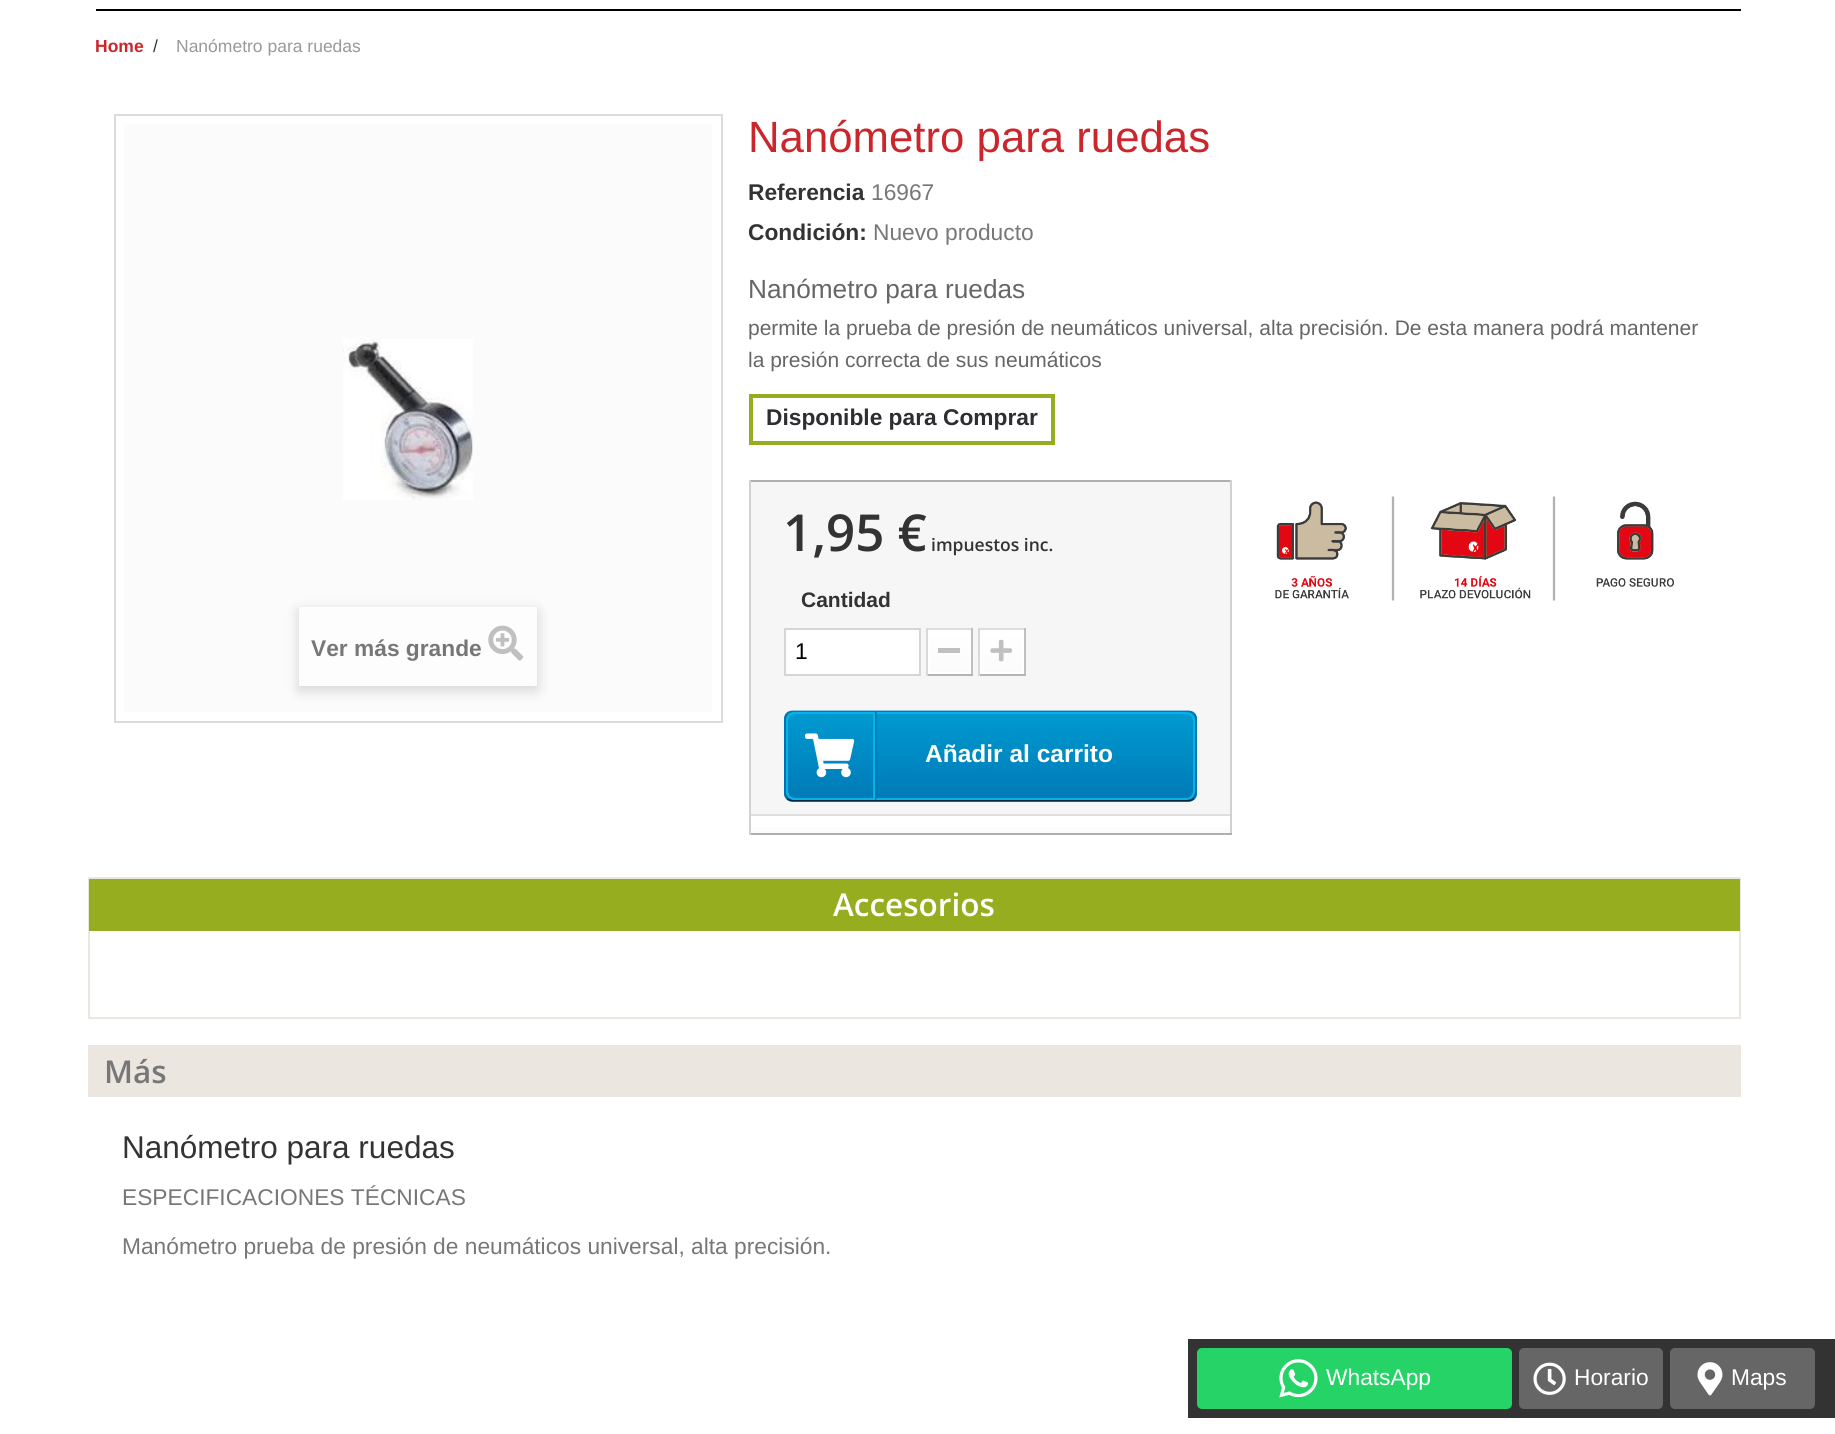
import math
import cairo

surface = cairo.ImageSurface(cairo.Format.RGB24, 1835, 1434)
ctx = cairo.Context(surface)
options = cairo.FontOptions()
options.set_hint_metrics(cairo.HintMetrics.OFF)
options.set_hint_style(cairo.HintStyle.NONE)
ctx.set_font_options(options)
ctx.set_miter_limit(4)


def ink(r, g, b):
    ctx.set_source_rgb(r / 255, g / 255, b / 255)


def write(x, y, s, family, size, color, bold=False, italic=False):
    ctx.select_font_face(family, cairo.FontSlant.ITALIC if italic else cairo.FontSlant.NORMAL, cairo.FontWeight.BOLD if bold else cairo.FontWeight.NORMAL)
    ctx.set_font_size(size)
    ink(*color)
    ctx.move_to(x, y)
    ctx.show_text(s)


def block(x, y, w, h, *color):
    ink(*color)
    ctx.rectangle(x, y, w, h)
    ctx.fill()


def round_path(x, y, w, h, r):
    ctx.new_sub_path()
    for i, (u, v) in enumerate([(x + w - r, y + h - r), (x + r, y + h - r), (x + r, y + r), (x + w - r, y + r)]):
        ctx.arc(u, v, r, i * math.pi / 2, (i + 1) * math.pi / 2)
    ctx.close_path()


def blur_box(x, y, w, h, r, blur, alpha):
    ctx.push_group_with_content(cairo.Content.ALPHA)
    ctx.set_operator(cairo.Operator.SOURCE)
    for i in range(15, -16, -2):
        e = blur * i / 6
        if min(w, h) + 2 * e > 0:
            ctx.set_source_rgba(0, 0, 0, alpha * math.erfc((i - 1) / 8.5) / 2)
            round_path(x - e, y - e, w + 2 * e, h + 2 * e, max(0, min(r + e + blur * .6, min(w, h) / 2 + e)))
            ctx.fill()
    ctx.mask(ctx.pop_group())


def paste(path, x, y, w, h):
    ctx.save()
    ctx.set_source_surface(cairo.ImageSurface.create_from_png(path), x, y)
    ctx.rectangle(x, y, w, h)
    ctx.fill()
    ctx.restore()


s1 = dict(family="Liberation Sans", size=17.5, color=(202, 38, 44), bold=True)
s2 = dict(family="Liberation Sans", size=17.5, color=(51, 51, 51))
s3 = dict(family="Liberation Sans", size=17.5, color=(153, 153, 153))
s4 = dict(family="Liberation Sans", size=22.75, color=(119, 119, 119), bold=True)
s5 = dict(family="Liberation Sans", size=43.75, color=(202, 38, 44))
s6 = dict(family="Liberation Sans", size=22.75, color=(51, 51, 51), bold=True)
s7 = dict(family="Liberation Sans", size=22.75, color=(119, 119, 119))
s8 = dict(family="Liberation Sans", size=26.25, color=(102, 102, 102))
s9 = dict(family="Liberation Sans", size=21, color=(102, 102, 102))
s10 = dict(family="Liberation Sans", size=22.75, color=(47, 44, 50), bold=True)
s11 = dict(family="Open Sans SemiBold", size=51, color=(51, 51, 51))
s12 = dict(family="Open Sans SemiBold", size=17.5, color=(51, 51, 51))
s13 = dict(family="Liberation Sans", size=21, color=(51, 51, 51), bold=True)
s14 = dict(family="Liberation Sans", size=22.75, color=(0, 0, 0))
s15 = dict(family="Liberation Sans", size=24.5, color=(255, 255, 255), bold=True)
s16 = dict(family="Open Sans SemiBold", size=31.5, color=(255, 255, 255))
s17 = dict(family="Open Sans SemiBold", size=31.5, color=(119, 119, 119))
s18 = dict(family="Liberation Sans", size=31.5, color=(51, 51, 51))
s19 = dict(family="Liberation Sans", size=22.75, color=(255, 255, 255))

ink(255, 255, 255)
ctx.paint()
block(96, 9, 1645, 2, 0, 0, 0)
write(95, 52, "Home", **s1)
write(153, 52, "/", **s2)
write(176, 52, "Nanómetro para ruedas", **s3)
ctx.rectangle(115, 115, 607, 607)
ink(219, 219, 219)
ctx.stroke()
block(124, 124, 588, 588, 251, 251, 251)
paste("pic1.png", 343, 339, 130, 161)
ctx.save()
ctx.set_fill_rule(cairo.FillRule.EVEN_ODD)
ctx.new_path()
ctx.move_to(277, 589)
ctx.line_to(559, 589)
ctx.line_to(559, 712)
ctx.line_to(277, 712)
ctx.close_path()
ctx.move_to(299, 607)
ctx.line_to(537, 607)
ctx.line_to(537, 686)
ctx.line_to(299, 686)
ctx.close_path()
ctx.clip()
ink(0, 0, 0)
blur_box(299, 611, 238, 79, 0, 7, 0.16)
ctx.restore()
ctx.set_source_rgba(1, 1, 1, 0.5)
ctx.rectangle(299, 607, 238, 79)
ctx.fill()
write(311, 656, "Ver más grande", **s4)
paste("pic2.png", 488, 625, 36, 36)
write(748, 152, "Nanómetro para ruedas", **s5)
write(748, 200, "Referencia", **s6)
write(871, 200, "16967", **s7)
write(748, 240, "Condición:", **s6)
write(873, 240, "Nuevo producto", **s7)
write(748, 298, "Nanómetro para ruedas", **s8)
write(748, 335, "permite la prueba de presión de neumáticos universal, alta precisión. De esta manera podrá mantener", **s9)
write(748, 367, "la presión correcta de sus neumáticos", **s9)
ctx.rectangle(751, 396, 302, 47)
ink(149, 173, 31)
ctx.set_line_width(4)
ctx.stroke()
write(766, 425, "Disponible para Comprar", **s10)
block(751, 482, 479, 332, 246, 246, 246)
block(749, 480, 483, 2, 176, 175, 175)
block(1230, 480, 2, 355, 210, 208, 208)
block(749, 833, 483, 2, 176, 175, 175)
block(749, 480, 2, 355, 210, 208, 208)
write(783, 551, "1,95 €", **s11)
write(931, 551, "impuestos inc.", **s12)
write(801, 607, "Cantidad", **s13)
ink(255, 255, 255)
ctx.rectangle(785, 629, 135, 46)
ctx.fill_preserve()
ink(214, 212, 212)
ctx.set_line_width(2)
ctx.stroke()
write(795, 659, "1", **s14)
block(926, 628, 47, 2, 222, 220, 220)
block(971, 628, 2, 48, 193, 191, 191)
block(926, 674, 47, 2, 181, 180, 180)
block(926, 628, 2, 48, 218, 216, 216)
gradient = cairo.LinearGradient(949, 632, 949, 672)
gradient.add_color_stop_rgba(0, 1, 1, 1, 1)
gradient.add_color_stop_rgba(1, 0.984, 0.984, 0.984, 1)
ctx.set_source(gradient)
ctx.rectangle(930, 632, 39, 40)
ctx.fill()
ctx.rectangle(929, 631, 41, 42)
ink(255, 255, 255)
ctx.stroke()
block(938, 648, 22, 5, 192, 192, 192)
block(978, 628, 48, 2, 222, 220, 220)
block(1024, 628, 2, 48, 193, 191, 191)
block(978, 674, 48, 2, 181, 180, 180)
block(978, 628, 2, 48, 218, 216, 216)
gradient = cairo.LinearGradient(1002, 632, 1002, 672)
gradient.add_color_stop_rgba(0, 1, 1, 1, 1)
gradient.add_color_stop_rgba(1, 0.984, 0.984, 0.984, 1)
ctx.set_source(gradient)
ctx.rectangle(982, 632, 40, 40)
ctx.fill()
ctx.rectangle(981, 631, 42, 42)
ink(255, 255, 255)
ctx.stroke()
paste("pic3.png", 990, 639, 22, 23)
ctx.save()
round_path(784, 711, 413, 91, 9)
ctx.clip()
gradient = cairo.LinearGradient(991, 712, 991, 800)
gradient.add_color_stop_rgba(0, 0, 0.604, 0.816, 1)
gradient.add_color_stop_rgba(1, 0, 0.478, 0.718, 1)
ctx.set_source(gradient)
ctx.rectangle(784, 712, 413, 88)
ctx.fill()
gradient = cairo.LinearGradient(991, 800, 991, 887)
gradient.add_color_stop_rgba(0, 0, 0.604, 0.816, 1)
gradient.add_color_stop_rgba(1, 0, 0.478, 0.718, 1)
ctx.set_source(gradient)
ctx.rectangle(784, 800, 413, 2)
ctx.fill()
ctx.restore()
ctx.new_path()
ctx.move_to(787, 713.5)
ctx.curve_to(788.5, 712, 790.5, 711.5, 793, 711.5)
ctx.line_to(1188, 711.5)
ctx.curve_to(1190.5, 711.5, 1192.5, 712, 1194, 713.5)
ink(0, 121, 182)
ctx.set_line_width(1.8)
ctx.stroke()
ctx.new_path()
ctx.move_to(1194, 713.5)
ctx.curve_to(1195.5, 715, 1196, 717, 1196, 719)
ctx.line_to(1196, 793)
ctx.curve_to(1196, 795, 1195.5, 797, 1194, 798.5)
ink(0, 111, 168)
ctx.stroke()
ctx.new_path()
ctx.move_to(1194, 798.5)
ctx.curve_to(1192.5, 800, 1190.5, 800.5, 1188, 800.5)
ctx.line_to(793, 800.5)
ctx.curve_to(790.5, 800.5, 788.5, 800, 787, 798.5)
ink(1, 39, 64)
ctx.stroke()
ctx.new_path()
ctx.move_to(787, 798.5)
ctx.curve_to(785.5, 797, 785, 795, 785, 793)
ctx.line_to(785, 719)
ctx.curve_to(785, 717, 785.5, 715, 787, 713.5)
ink(0, 111, 168)
ctx.stroke()
round_path(787, 713, 407, 86, 8)
ink(6, 178, 230)
ctx.set_line_width(2)
ctx.stroke()
ctx.new_path()
ctx.move_to(795, 713)
ctx.line_to(874, 713)
ctx.line_to(874, 799)
ctx.line_to(795, 799)
ctx.curve_to(790.5, 799, 787, 795.5, 787, 791)
ctx.line_to(787, 721)
ctx.curve_to(787, 716.5, 790.5, 713, 795, 713)
ctx.close_path()
ctx.stroke()
paste("pic4.png", 805, 733, 50, 45)
paste("pic5.png", 875, 712, 2, 88)
write(925, 762, "Añadir al carrito", **s15)
gradient = cairo.LinearGradient(991, 816, 991, 833)
gradient.add_color_stop_rgba(0, 1, 1, 1, 1)
gradient.add_color_stop_rgba(1, 0.984, 0.984, 0.984, 1)
ctx.set_source(gradient)
ctx.rectangle(751, 827, 479, 6)
ctx.fill()
block(751, 814, 479, 2, 223, 222, 222)
paste("pic6.png", 1275, 496, 399, 105)
ctx.rectangle(89, 878, 1651, 140)
ink(236, 230, 225)
ctx.stroke()
block(89, 879, 1651, 52, 149, 173, 31)
write(833, 916, "Accesorios", **s16)
block(88, 1045, 1653, 52, 236, 230, 225)
write(104, 1083, "Más", **s17)
write(122, 1158, "Nanómetro para ruedas", **s18)
write(122, 1205, "ESPECIFICACIONES TÉCNICAS", **s7)
write(122, 1254, "Manómetro prueba de presión de neumáticos universal, alta precisión.", **s7)
block(1188, 1339, 647, 79, 51, 51, 51)
ink(37, 211, 102)
round_path(1197, 1348, 315, 61, 5)
ctx.fill()
paste("pic7.png", 1279, 1359, 39, 39)
write(1326, 1385, "WhatsApp", **s19)
ink(102, 102, 102)
round_path(1519, 1348, 144, 61, 5)
ctx.fill()
paste("pic8.png", 1533, 1362, 33, 33)
write(1574, 1385, "Horario", **s19)
ink(102, 102, 102)
round_path(1670, 1348, 145, 61, 5)
ctx.fill()
paste("pic9.png", 1697, 1362, 26, 34)
write(1731, 1385, "Maps", **s19)
surface.write_to_png("screenshot.png")
